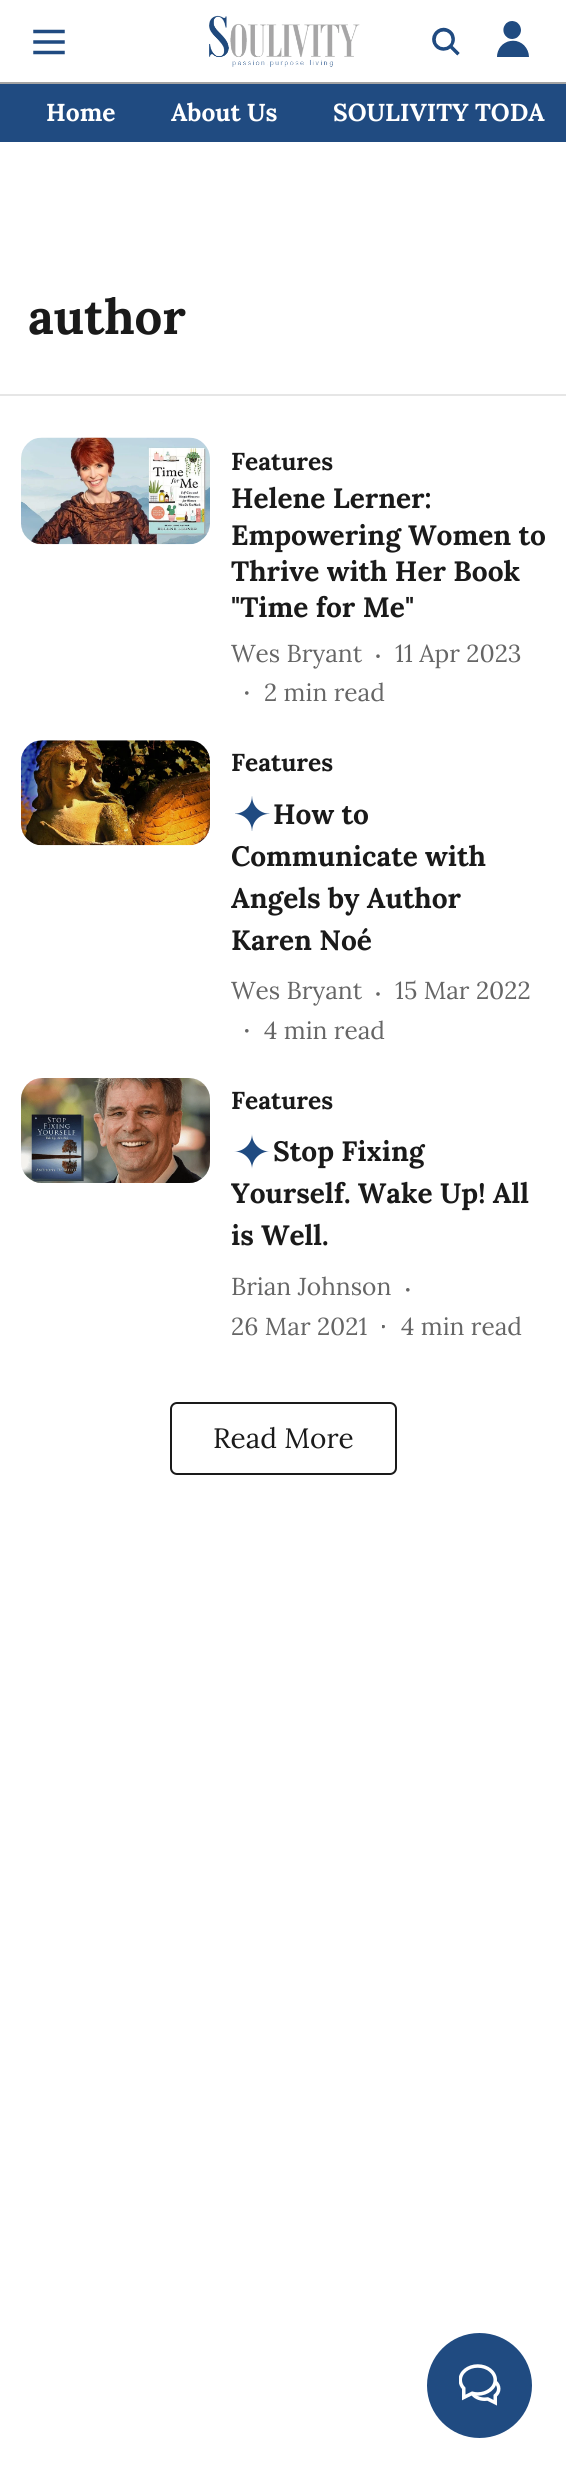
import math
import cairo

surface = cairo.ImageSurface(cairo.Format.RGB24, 566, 2472)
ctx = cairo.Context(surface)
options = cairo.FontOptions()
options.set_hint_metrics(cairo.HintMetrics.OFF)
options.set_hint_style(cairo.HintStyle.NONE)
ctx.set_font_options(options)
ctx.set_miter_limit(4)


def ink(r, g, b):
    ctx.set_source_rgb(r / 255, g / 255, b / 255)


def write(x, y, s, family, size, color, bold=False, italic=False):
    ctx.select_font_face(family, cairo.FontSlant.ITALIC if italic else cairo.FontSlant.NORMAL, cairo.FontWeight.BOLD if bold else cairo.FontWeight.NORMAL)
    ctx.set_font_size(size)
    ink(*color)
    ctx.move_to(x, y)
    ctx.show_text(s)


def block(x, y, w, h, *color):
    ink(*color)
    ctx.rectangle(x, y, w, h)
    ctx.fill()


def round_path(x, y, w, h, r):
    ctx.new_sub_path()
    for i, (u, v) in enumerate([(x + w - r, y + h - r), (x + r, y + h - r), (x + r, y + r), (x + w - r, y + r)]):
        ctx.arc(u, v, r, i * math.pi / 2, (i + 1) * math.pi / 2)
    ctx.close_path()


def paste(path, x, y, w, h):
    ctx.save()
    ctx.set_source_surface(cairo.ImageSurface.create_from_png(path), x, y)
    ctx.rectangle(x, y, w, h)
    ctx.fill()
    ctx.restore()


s1 = dict(family="Lora", size=24.5, color=(255, 255, 255), bold=True)
s2 = dict(family="Lora", size=49, color=(26, 26, 26), bold=True)
s3 = dict(family="Lora", size=24.5, color=(26, 26, 26), bold=True)
s4 = dict(family="Lora", size=28, color=(26, 26, 26), bold=True)
s5 = dict(family="Lora", size=24.5, color=(102, 102, 102))
s6 = dict(family="Lora", size=28, color=(26, 26, 26))

ink(255, 255, 255)
ctx.paint()
block(0, 82, 566, 2, 164, 164, 164)
paste("pic1.png", 33, 29, 32, 26)
paste("pic2.png", 209, 15, 151, 52)
paste("pic3.png", 432, 27, 28, 29)
paste("pic4.png", 497, 21, 32, 36)
block(0, 84, 566, 58, 32, 75, 129)
write(46, 121, "Home", **s1)
write(171, 121, "About Us", **s1)
write(333, 121, "SOULIVITY TODA", **s1)
block(0, 394, 566, 2, 230, 230, 230)
write(28, 334, "author", **s2)
paste("pic5.png", 21, 437, 189, 108)
write(231, 470, "Features", **s3)
write(231, 508, "Helene Lerner:", **s4)
write(231, 545, "Empowering Women to", **s4)
write(231, 581, "Thrive with Her Book", **s4)
write(231, 617, "\"Time for Me\"", **s4)
write(231, 662, "Wes Bryant", **s5)
ctx.new_path()
ctx.arc(378, 656.2, 1.8, 0, 2 * math.pi)
ctx.fill()
write(395, 662, "11 Apr 2023", **s5)
ctx.new_path()
ctx.arc(246.8, 693, 1.8, 0, 2 * math.pi)
ctx.fill()
write(264, 701, "2 min read", **s5)
ink(240, 240, 240)
round_path(21, 740, 189, 105, 21)
ctx.fill()
paste("pic6.png", 21, 740, 189, 106)
write(231, 771, "Features", **s3)
paste("pic7.png", 235, 796, 35, 35)
write(273, 824, "How to", **s4)
write(231, 866, "Communicate with", **s4)
write(231, 908, "Angels by Author", **s4)
write(231, 950, "Karen Noé", **s4)
write(231, 999, "Wes Bryant", **s5)
ctx.new_path()
ctx.arc(378, 994, 1.8, 0, 2 * math.pi)
ctx.fill()
write(395, 999, "15 Mar 2022", **s5)
ctx.new_path()
ctx.arc(246.8, 1030.8, 1.8, 0, 2 * math.pi)
ctx.fill()
write(264, 1039, "4 min read", **s5)
ink(240, 240, 240)
round_path(21, 1078, 189, 105, 21)
ctx.fill()
paste("pic8.png", 21, 1078, 189, 105)
write(231, 1109, "Features", **s3)
ink(32, 75, 129)
ctx.new_path()
ctx.move_to(269.5, 1151.5)
ctx.curve_to(260, 1151.5, 252, 1159.5, 252, 1169)
ctx.curve_to(252, 1159.5, 244, 1151.5, 234.5, 1151.5)
ctx.curve_to(244, 1151.5, 252, 1143.5, 252, 1134)
ctx.curve_to(252, 1143.5, 260, 1151.5, 269.5, 1151.5)
ctx.close_path()
ctx.fill()
write(273, 1161, "Stop Fixing", **s4)
write(231, 1203, "Yourself. Wake Up! All", **s4)
write(231, 1245, "is Well.", **s4)
write(231, 1295, "Brian Johnson", **s5)
ctx.new_path()
ctx.arc(407.8, 1289.8, 1.8, 0, 2 * math.pi)
ctx.fill()
write(231, 1335, "26 Mar 2021", **s5)
ctx.save()
ctx.rectangle(382, 1325, 5, 5)
ctx.clip()
ctx.arc(383.2, 1326.5, 1.8, 0, 2 * math.pi)
ctx.fill()
ctx.restore()
write(401, 1335, "4 min read", **s5)
round_path(171, 1403, 225, 71, 6)
ink(26, 26, 26)
ctx.stroke()
write(213, 1448, "Read More", **s6)
ink(32, 75, 129)
ctx.new_path()
ctx.arc(479.5, 2385.5, 52.5, 0, 2 * math.pi)
ctx.fill()
paste("pic9.png", 459, 2364, 42, 42)
surface.write_to_png("screenshot.png")
